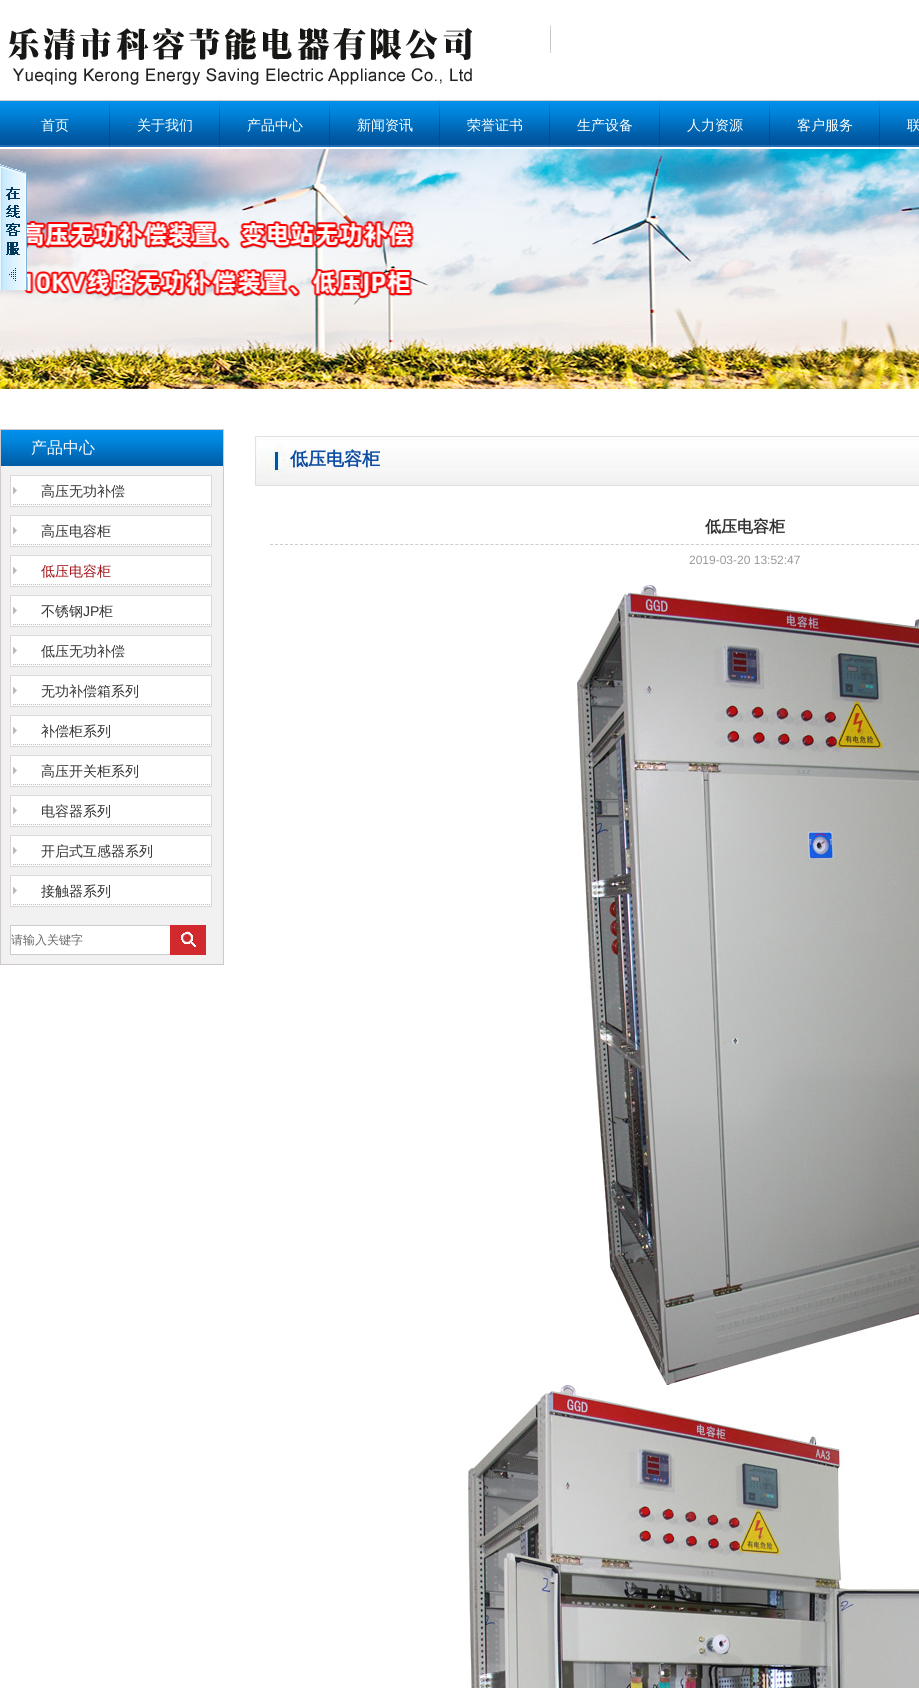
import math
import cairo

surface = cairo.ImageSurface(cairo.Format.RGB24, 919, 1688)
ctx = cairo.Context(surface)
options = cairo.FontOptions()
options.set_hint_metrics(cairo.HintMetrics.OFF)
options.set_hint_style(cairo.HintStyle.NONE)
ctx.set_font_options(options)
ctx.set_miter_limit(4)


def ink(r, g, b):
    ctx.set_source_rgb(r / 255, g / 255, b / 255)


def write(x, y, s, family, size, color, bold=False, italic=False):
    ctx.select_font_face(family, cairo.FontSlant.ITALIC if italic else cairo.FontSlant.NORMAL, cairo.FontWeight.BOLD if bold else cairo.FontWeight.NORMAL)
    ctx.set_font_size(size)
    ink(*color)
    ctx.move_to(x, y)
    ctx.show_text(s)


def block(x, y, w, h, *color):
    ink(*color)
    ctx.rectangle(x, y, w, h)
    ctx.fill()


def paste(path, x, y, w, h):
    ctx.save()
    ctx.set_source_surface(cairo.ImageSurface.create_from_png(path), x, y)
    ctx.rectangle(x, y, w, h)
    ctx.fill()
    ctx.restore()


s1 = dict(family="WenQuanYi Zen Hei Medium", size=14, color=(255, 255, 255))
s2 = dict(family="WenQuanYi Zen Hei Medium", size=16, color=(255, 255, 255))
s3 = dict(family="WenQuanYi Zen Hei Medium", size=14, color=(51, 51, 51))
s4 = dict(family="WenQuanYi Zen Hei Medium", size=14, color=(161, 16, 21))
s5 = dict(family="Liberation Sans", size=14, color=(51, 51, 51))
s6 = dict(family="WenQuanYi Zen Hei Medium", size=12, color=(102, 102, 102))
s7 = dict(family="WenQuanYi Zen Hei", size=18, color=(12, 76, 163), bold=True)
s8 = dict(family="WenQuanYi Zen Hei", size=16, color=(51, 51, 51), bold=True)
s9 = dict(family="Liberation Sans", size=12, color=(153, 153, 153))

ink(255, 255, 255)
ctx.paint()
paste("pic1.png", 8, 28, 464, 57)
paste("pic2.png", 550, 25, 1, 28)
paste("pic3.png", 0, 101, 919, 46)
block(0, 100, 919, 1, 204, 204, 204)
paste("pic4.png", 109, 101, 1, 48)
write(41, 130, "首页", **s1)
paste("pic4.png", 219, 101, 1, 48)
write(137, 130, "关于我们", **s1)
paste("pic4.png", 329, 101, 1, 48)
write(247, 130, "产品中心", **s1)
paste("pic4.png", 439, 101, 1, 48)
write(357, 130, "新闻资讯", **s1)
paste("pic4.png", 549, 101, 1, 48)
write(467, 130, "荣誉证书", **s1)
paste("pic4.png", 659, 101, 1, 48)
write(577, 130, "生产设备", **s1)
paste("pic4.png", 769, 101, 1, 48)
write(687, 130, "人力资源", **s1)
paste("pic4.png", 879, 101, 1, 48)
write(797, 130, "客户服务", **s1)
write(907, 130, "联", **s1)
paste("pic5.png", 0, 149, 919, 240)
paste("pic6.png", 0, 164, 27, 126)
block(1, 466, 222, 498, 241, 241, 241)
ctx.rectangle(0.5, 429.5, 223, 535)
ink(208, 201, 205)
ctx.set_line_width(1)
ctx.stroke()
paste("pic7.png", 1, 430, 222, 36)
write(31, 453, "产品中心", **s2)
block(11, 476, 200, 30, 255, 255, 255)
paste("pic8.png", 13, 487, 198, 18)
ctx.rectangle(10.5, 475.5, 201, 31)
ink(223, 215, 215)
ctx.stroke()
write(41, 496, "高压无功补偿", **s3)
block(11, 516, 200, 30, 255, 255, 255)
paste("pic8.png", 13, 527, 198, 18)
ctx.rectangle(10.5, 515.5, 201, 31)
ink(223, 215, 215)
ctx.stroke()
write(41, 536, "高压电容柜", **s3)
block(11, 556, 200, 30, 255, 255, 255)
paste("pic8.png", 13, 567, 198, 18)
ctx.rectangle(10.5, 555.5, 201, 31)
ink(223, 215, 215)
ctx.stroke()
write(41, 576, "低压电容柜", **s4)
block(11, 596, 200, 30, 255, 255, 255)
paste("pic8.png", 13, 607, 198, 18)
ctx.rectangle(10.5, 595.5, 201, 31)
ink(223, 215, 215)
ctx.stroke()
write(41, 616, "不锈钢", **s3)
write(83, 616, "JP", **s5)
write(99, 616, "柜", **s3)
block(11, 636, 200, 30, 255, 255, 255)
paste("pic8.png", 13, 647, 198, 18)
ctx.rectangle(10.5, 635.5, 201, 31)
ink(223, 215, 215)
ctx.stroke()
write(41, 656, "低压无功补偿", **s3)
block(11, 676, 200, 30, 255, 255, 255)
paste("pic8.png", 13, 687, 198, 18)
ctx.rectangle(10.5, 675.5, 201, 31)
ink(223, 215, 215)
ctx.stroke()
write(41, 696, "无功补偿箱系列", **s3)
block(11, 716, 200, 30, 255, 255, 255)
paste("pic8.png", 13, 727, 198, 18)
ctx.rectangle(10.5, 715.5, 201, 31)
ink(223, 215, 215)
ctx.stroke()
write(41, 736, "补偿柜系列", **s3)
block(11, 756, 200, 30, 255, 255, 255)
paste("pic8.png", 13, 767, 198, 18)
ctx.rectangle(10.5, 755.5, 201, 31)
ink(223, 215, 215)
ctx.stroke()
write(41, 776, "高压开关柜系列", **s3)
block(11, 796, 200, 30, 255, 255, 255)
paste("pic8.png", 13, 807, 198, 18)
ctx.rectangle(10.5, 795.5, 201, 31)
ink(223, 215, 215)
ctx.stroke()
write(41, 816, "电容器系列", **s3)
block(11, 836, 200, 30, 255, 255, 255)
paste("pic8.png", 13, 847, 198, 18)
ctx.rectangle(10.5, 835.5, 201, 31)
ink(223, 215, 215)
ctx.stroke()
write(41, 856, "开启式互感器系列", **s3)
block(11, 876, 200, 30, 255, 255, 255)
paste("pic8.png", 13, 887, 198, 18)
ctx.rectangle(10.5, 875.5, 201, 31)
ink(223, 215, 215)
ctx.stroke()
write(41, 896, "接触器系列", **s3)
block(11, 926, 159, 28, 255, 255, 255)
ctx.rectangle(10.5, 925.5, 191, 29)
ink(204, 204, 204)
ctx.stroke()
write(11, 944, "请输入关键字", **s6)
paste("pic9.png", 170, 925, 36, 30)
paste("pic10.png", 254, 435, 665, 52)
write(290, 465, "低压电容柜", **s7)
ctx.new_path()
ctx.move_to(270, 544.5)
ctx.line_to(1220, 544.5)
ink(204, 204, 204)
ctx.set_dash([3, 2.01])
ctx.stroke()
write(705, 532, "低压电容柜", **s8)
write(689, 564, "2019-03-20 13:52:47", **s9)
paste("pic11.png", 577, 585, 342, 800)
paste("pic12.png", 468, 1385, 451, 303)
surface.write_to_png("screenshot.png")
